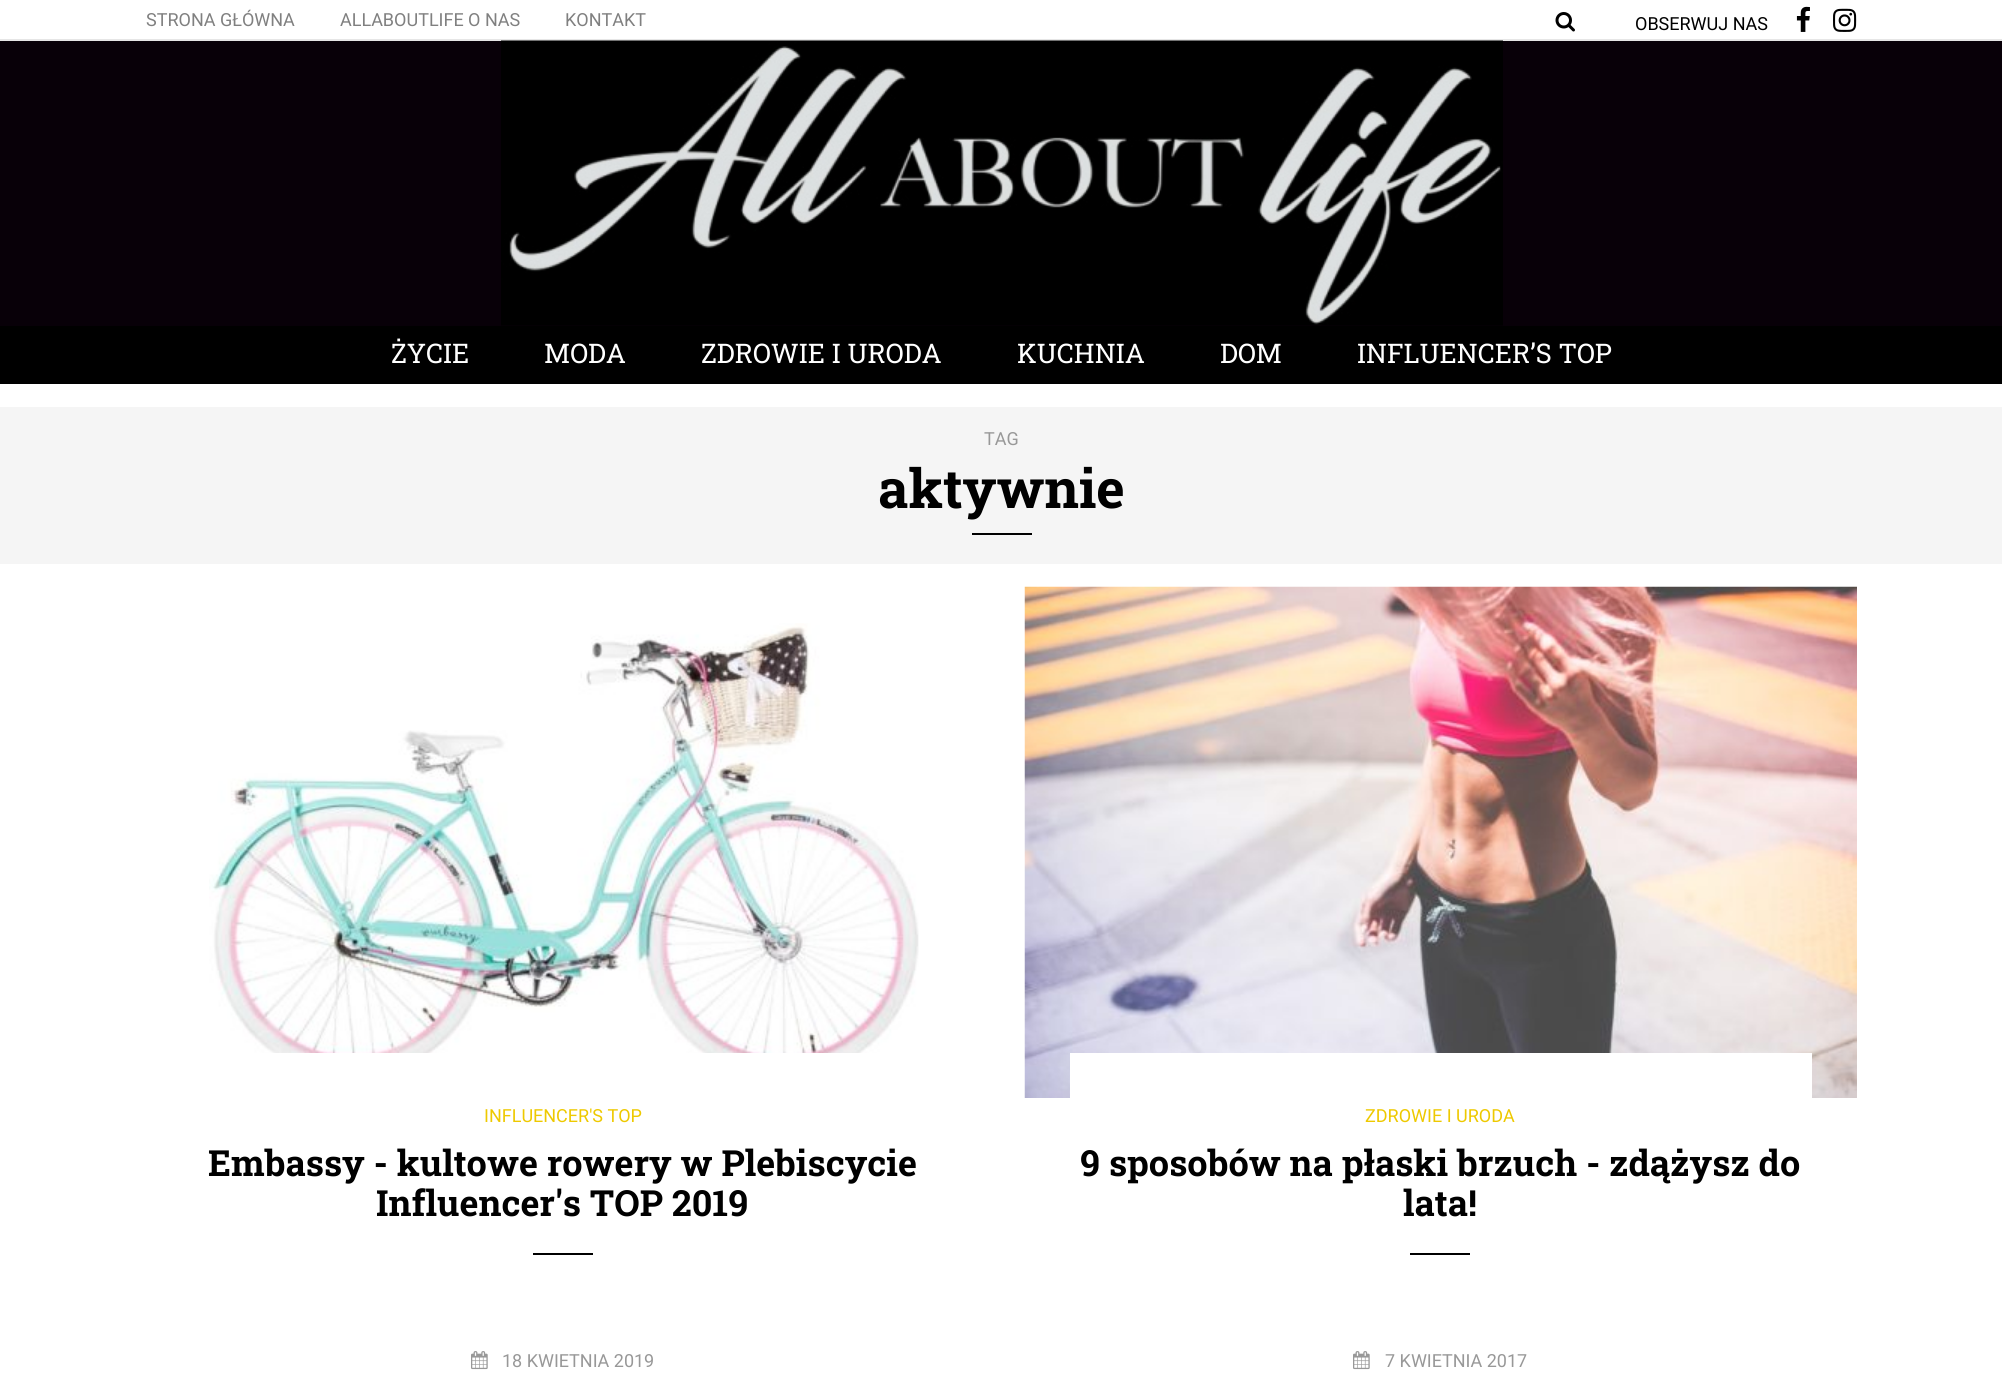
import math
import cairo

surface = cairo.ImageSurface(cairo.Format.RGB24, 2002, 1375)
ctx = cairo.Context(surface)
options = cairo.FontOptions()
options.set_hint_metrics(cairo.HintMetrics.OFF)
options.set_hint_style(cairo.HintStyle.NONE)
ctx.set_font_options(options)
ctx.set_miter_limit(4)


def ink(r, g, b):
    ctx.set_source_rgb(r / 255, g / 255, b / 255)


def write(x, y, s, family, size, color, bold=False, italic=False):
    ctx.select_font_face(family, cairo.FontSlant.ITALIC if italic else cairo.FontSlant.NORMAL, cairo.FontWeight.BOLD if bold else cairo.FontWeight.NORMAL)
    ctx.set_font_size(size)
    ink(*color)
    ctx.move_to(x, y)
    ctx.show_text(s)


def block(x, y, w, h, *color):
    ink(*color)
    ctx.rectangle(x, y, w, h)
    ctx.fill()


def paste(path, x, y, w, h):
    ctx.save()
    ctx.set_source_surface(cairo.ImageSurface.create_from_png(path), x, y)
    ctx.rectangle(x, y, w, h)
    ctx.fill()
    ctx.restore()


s1 = dict(family="Roboto", size=18, color=(128, 128, 128))
s2 = dict(family="Roboto", size=18, color=(0, 0, 0))
s3 = dict(family="Roboto Slab", size=27, color=(255, 255, 255))
s4 = dict(family="Roboto", size=18, color=(152, 152, 152))
s5 = dict(family="Roboto Slab", size=54, color=(0, 0, 0), bold=True)
s6 = dict(family="Roboto", size=18, color=(238, 201, 0))
s7 = dict(family="Roboto Slab", size=36, color=(0, 0, 0), bold=True)

ink(255, 255, 255)
ctx.paint()
block(0, 39, 2002, 2, 230, 230, 230)
write(146, 26, "STRONA GŁÓWNA", **s1)
write(340, 26, "ALLABOUTLIFE O NAS", **s1)
write(565, 26, "KONTAKT", **s1)
paste("pic1.png", 1555, 12, 20, 20)
write(1635, 30, "OBSERWUJ NAS", **s2)
paste("pic2.png", 1796, 6, 14, 26)
paste("pic3.png", 1833, 8, 24, 24)
block(0, 41, 2002, 285, 8, 0, 8)
paste("pic4.png", 501, 40, 1002, 286)
block(0, 326, 2002, 58, 0, 0, 0)
write(391, 363, "ŻYCIE", **s3)
write(544, 363, "MODA", **s3)
write(701, 363, "ZDROWIE I URODA", **s3)
write(1017, 363, "KUCHNIA", **s3)
write(1220, 363, "DOM", **s3)
write(1357, 363, "INFLUENCER’S TOP", **s3)
block(0, 407, 2002, 157, 245, 245, 245)
write(984, 445, "TAG", **s4)
write(878, 508, "aktywnie", **s5)
block(972, 533, 60, 2, 0, 0, 0)
paste("pic5.png", 209, 623, 710, 430)
write(484, 1122, "INFLUENCER'S TOP", **s6)
write(208, 1176, "Embassy - kultowe rowery w Plebiscycie", **s7)
write(376, 1216, "Influencer's TOP 2019", **s7)
block(533, 1253, 60, 2, 0, 0, 0)
paste("pic6.png", 471, 1351, 17, 19)
write(502, 1367, "18 KWIETNIA 2019", **s4)
paste("pic7.png", 1024, 586, 833, 512)
block(1070, 1053, 742, 45, 255, 255, 255)
write(1365, 1122, "ZDROWIE I URODA", **s6)
write(1080, 1176, "9 sposobów na płaski brzuch - zdążysz do", **s7)
write(1403, 1216, "lata!", **s7)
block(1410, 1253, 60, 2, 0, 0, 0)
paste("pic6.png", 1353, 1351, 17, 19)
write(1385, 1367, "7 KWIETNIA 2017", **s4)
surface.write_to_png("screenshot.png")
